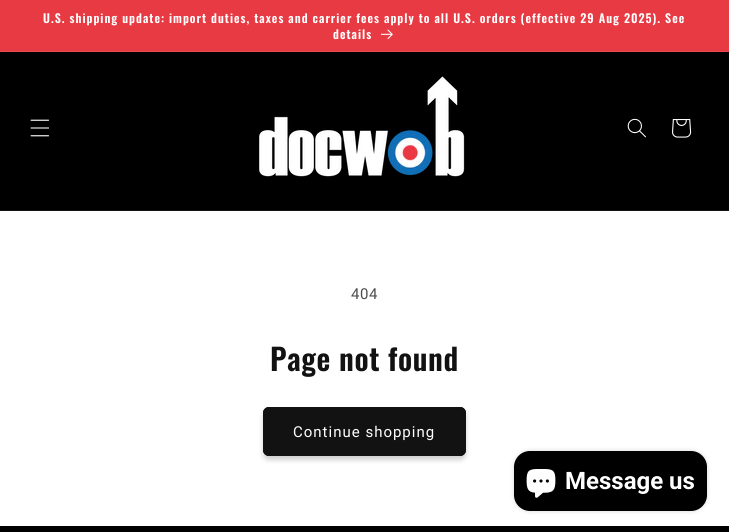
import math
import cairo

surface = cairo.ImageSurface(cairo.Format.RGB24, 729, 532)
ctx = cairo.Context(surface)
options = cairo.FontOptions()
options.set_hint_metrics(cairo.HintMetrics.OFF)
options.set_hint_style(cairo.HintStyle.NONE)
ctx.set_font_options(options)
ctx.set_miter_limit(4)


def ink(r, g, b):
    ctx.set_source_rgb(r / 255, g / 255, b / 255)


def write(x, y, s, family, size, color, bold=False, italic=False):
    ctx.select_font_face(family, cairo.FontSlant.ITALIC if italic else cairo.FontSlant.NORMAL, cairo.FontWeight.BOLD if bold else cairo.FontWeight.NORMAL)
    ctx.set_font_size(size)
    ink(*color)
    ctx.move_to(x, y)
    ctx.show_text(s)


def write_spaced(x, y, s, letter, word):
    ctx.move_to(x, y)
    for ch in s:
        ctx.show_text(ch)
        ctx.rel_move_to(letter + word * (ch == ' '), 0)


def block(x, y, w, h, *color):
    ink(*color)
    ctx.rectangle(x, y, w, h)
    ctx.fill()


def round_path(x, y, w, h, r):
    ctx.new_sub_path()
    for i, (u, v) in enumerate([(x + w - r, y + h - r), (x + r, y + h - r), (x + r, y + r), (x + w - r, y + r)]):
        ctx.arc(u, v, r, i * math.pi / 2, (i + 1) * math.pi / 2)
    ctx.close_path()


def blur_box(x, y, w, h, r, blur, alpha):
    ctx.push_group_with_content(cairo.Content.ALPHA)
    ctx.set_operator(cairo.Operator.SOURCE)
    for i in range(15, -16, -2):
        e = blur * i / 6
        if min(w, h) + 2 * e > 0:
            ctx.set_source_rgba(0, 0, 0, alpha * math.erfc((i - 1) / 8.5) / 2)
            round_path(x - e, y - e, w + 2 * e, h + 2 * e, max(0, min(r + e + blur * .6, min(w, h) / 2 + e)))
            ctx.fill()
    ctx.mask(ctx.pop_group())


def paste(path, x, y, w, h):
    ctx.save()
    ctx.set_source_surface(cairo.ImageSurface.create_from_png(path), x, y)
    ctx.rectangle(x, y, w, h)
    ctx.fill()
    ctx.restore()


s1 = dict(family="Roboto", size=24, color=(255, 255, 255), bold=True)

ink(255, 255, 255)
ctx.paint()
block(0, 0, 729, 51, 232, 58, 67)
block(0, 51, 729, 1, 234, 74, 82)
ctx.select_font_face("Oswald SemiBold")
ctx.set_font_size(12)
ink(255, 255, 255)
write_spaced(43, 23, "U.S. shipping update: import duties, taxes and carrier fees apply to all U.S. orders (effective 29 Aug 2025). See", 1, 0)
write_spaced(333, 39, "details", 1, 0)
paste("pic1.png", 381, 29, 12, 10)
block(0, 52, 729, 158, 0, 0, 0)
block(0, 210, 729, 1, 20, 20, 20)
paste("pic2.png", 30, 119, 20, 18)
paste("pic3.png", 259, 76, 206, 101)
paste("pic4.png", 627, 118, 19, 20)
paste("pic5.png", 672, 119, 20, 19)
ctx.select_font_face("Roboto")
ctx.set_font_size(15)
ink(77, 77, 77)
write_spaced(351, 299, "404", 0.6, 0)
ctx.select_font_face("Oswald SemiBold")
ctx.set_font_size(30)
ink(18, 18, 18)
write_spaced(270, 371, "Page not found", 0.6, 0)
ink(18, 18, 18)
blur_box(263, 411, 203, 49, 6, 2.5, 0.2)
ink(18, 18, 18)
round_path(263, 407, 203, 49, 6)
ctx.fill()
round_path(264, 408, 201, 47, 5)
ctx.stroke()
ctx.select_font_face("Roboto")
ctx.set_font_size(15)
ink(255, 255, 255)
write_spaced(293, 437, "Continue shopping", 1, 0)
ink(0, 0, 0)
blur_box(514, 451, 193, 60, 16, 2.5, 0.15)
ink(0, 0, 0)
round_path(514, 451, 193, 60, 16)
ctx.fill()
paste("pic6.png", 526, 469, 30, 29)
write(565, 489, "Message us", **s1)
block(0, 526, 729, 6, 0, 0, 0)
surface.write_to_png("screenshot.png")
